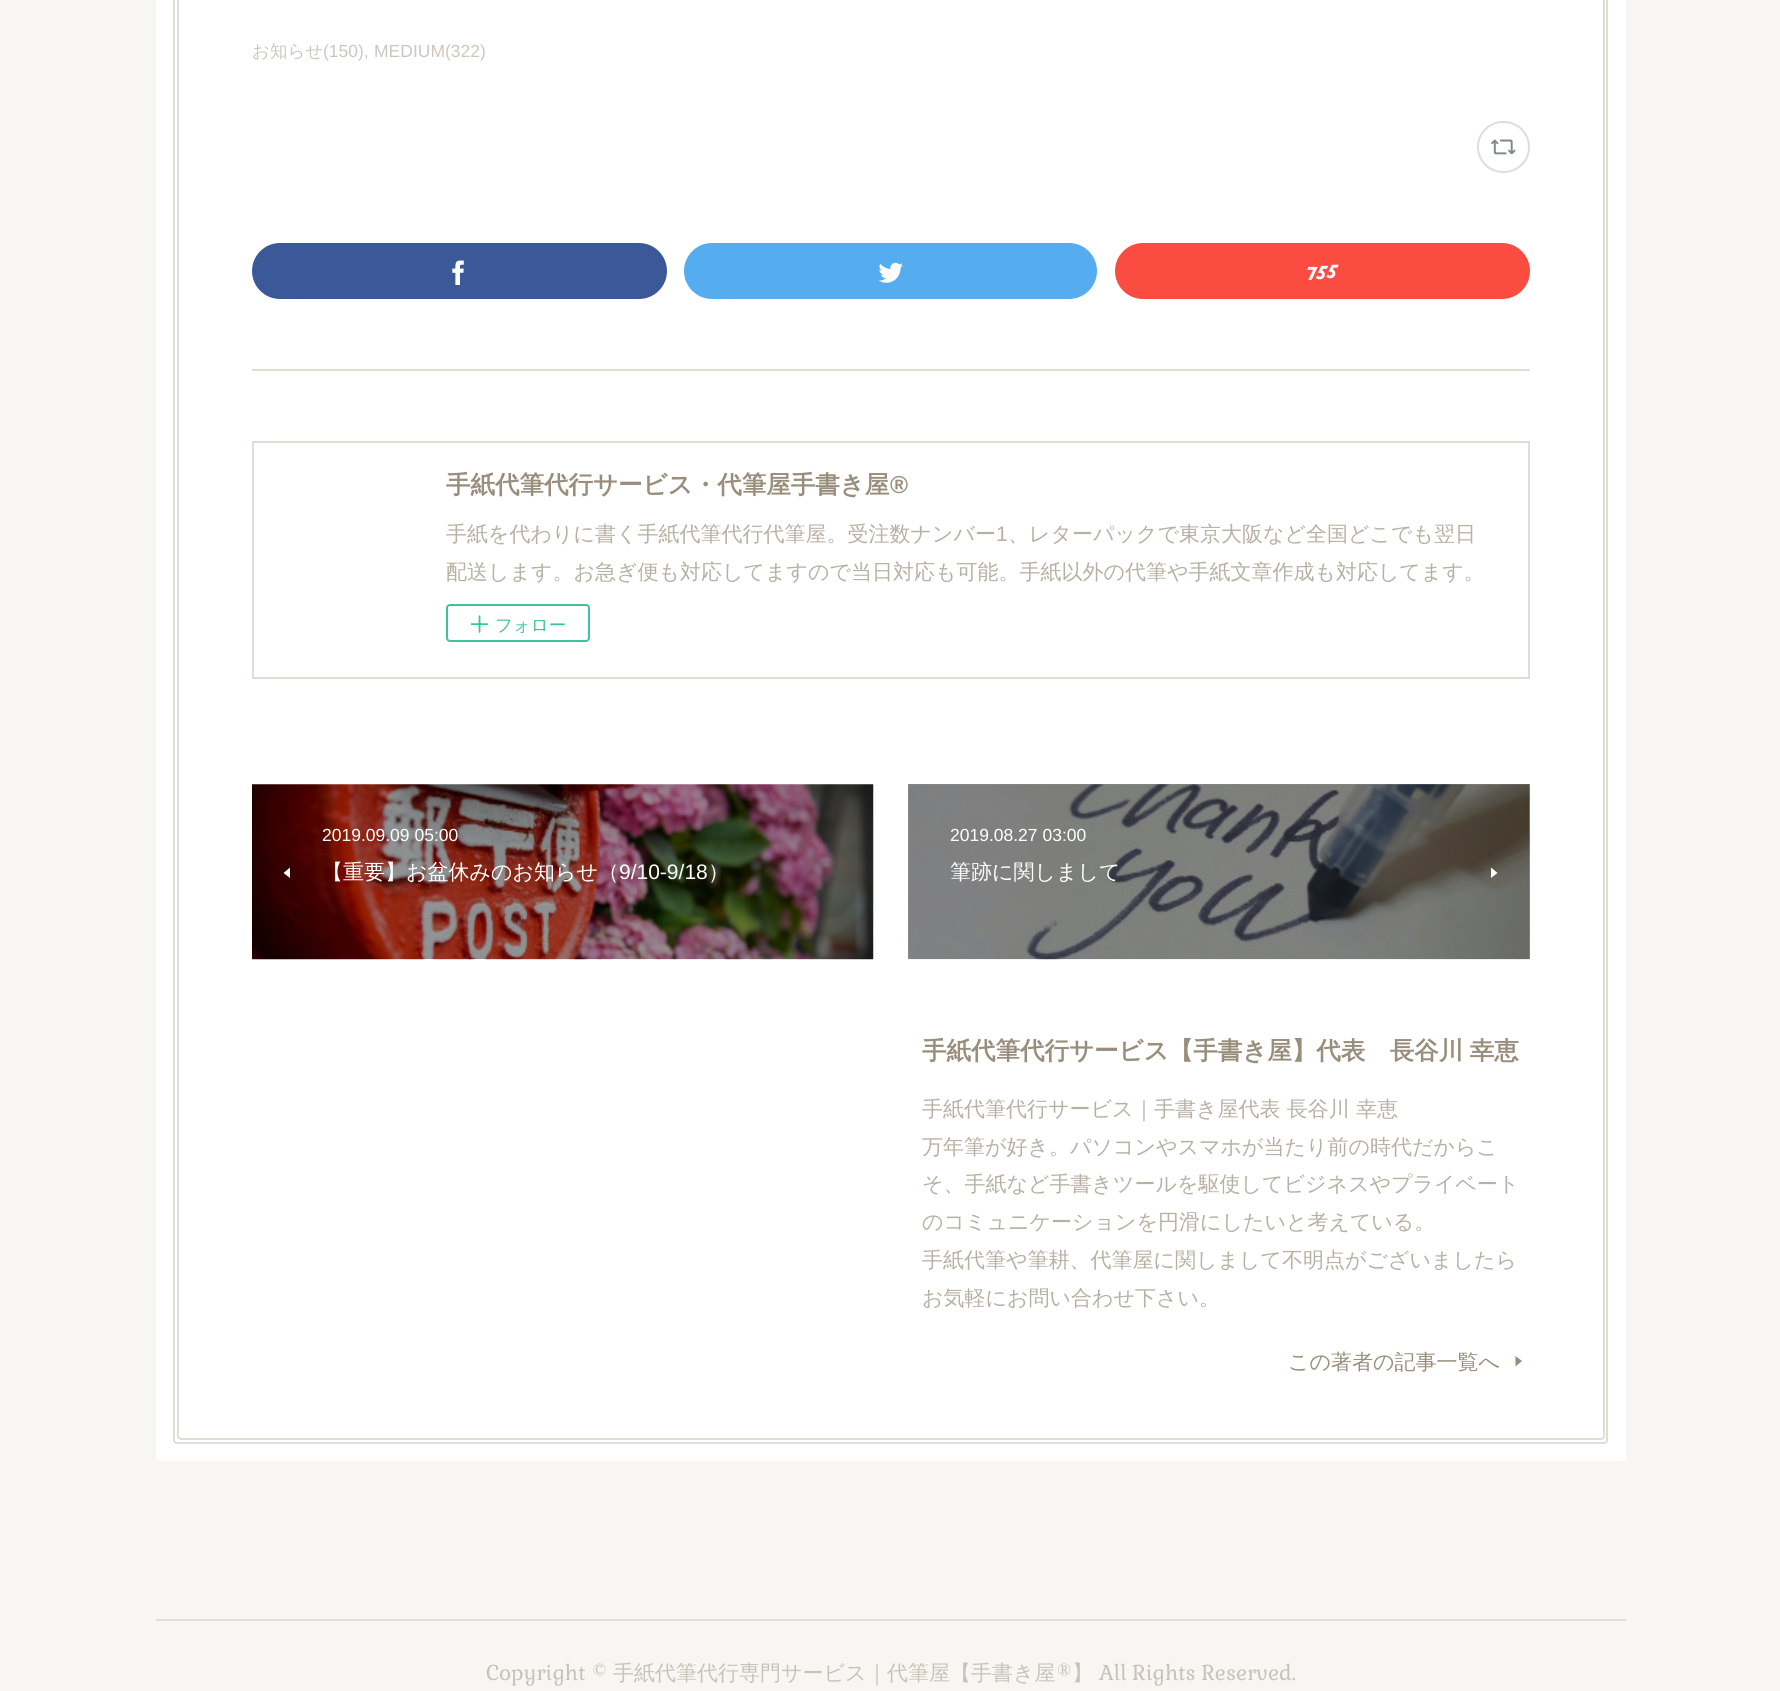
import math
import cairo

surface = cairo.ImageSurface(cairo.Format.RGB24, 1780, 1691)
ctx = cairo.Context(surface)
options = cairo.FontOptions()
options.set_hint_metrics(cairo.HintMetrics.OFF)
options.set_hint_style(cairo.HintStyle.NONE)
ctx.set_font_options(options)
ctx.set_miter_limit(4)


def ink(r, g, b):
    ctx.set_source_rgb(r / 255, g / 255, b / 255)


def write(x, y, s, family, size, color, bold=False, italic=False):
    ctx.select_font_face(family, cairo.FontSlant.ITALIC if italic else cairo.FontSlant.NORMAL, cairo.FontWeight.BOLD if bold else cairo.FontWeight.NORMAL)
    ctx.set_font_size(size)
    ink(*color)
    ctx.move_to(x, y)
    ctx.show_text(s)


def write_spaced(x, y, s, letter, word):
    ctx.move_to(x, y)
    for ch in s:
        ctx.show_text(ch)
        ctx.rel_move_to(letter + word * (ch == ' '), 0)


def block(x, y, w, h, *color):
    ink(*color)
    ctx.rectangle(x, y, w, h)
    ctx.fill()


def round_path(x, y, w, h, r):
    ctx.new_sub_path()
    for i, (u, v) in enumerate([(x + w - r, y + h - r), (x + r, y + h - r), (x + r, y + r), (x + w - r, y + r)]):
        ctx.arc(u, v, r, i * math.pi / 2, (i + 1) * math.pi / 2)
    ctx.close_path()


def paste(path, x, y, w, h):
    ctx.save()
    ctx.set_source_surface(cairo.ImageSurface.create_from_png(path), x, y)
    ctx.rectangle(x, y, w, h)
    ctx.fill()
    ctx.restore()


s1 = dict(family="WenQuanYi Zen Hei Medium", size=17.5, color=(204, 199, 190))
s2 = dict(family="Liberation Sans", size=17.5, color=(204, 199, 190))
s3 = dict(family="WenQuanYi Zen Hei", size=24.5, color=(153, 142, 124), bold=True)
s4 = dict(family="Liberation Sans", size=24.5, color=(153, 142, 124), bold=True)
s5 = dict(family="WenQuanYi Zen Hei Medium", size=21, color=(184, 176, 163))
s6 = dict(family="Liberation Sans", size=21, color=(184, 176, 163))
s7 = dict(family="WenQuanYi Zen Hei Medium", size=17.5, color=(61, 196, 157))
s8 = dict(family="Liberation Sans", size=17.5, color=(255, 255, 255))
s9 = dict(family="WenQuanYi Zen Hei Medium", size=21, color=(255, 255, 255))
s10 = dict(family="Liberation Sans", size=21, color=(255, 255, 255))
s11 = dict(family="WenQuanYi Zen Hei Medium", size=21, color=(153, 142, 124))
s12 = dict(family="Gabriela", size=21, color=(200, 194, 183))
s13 = dict(family="WenQuanYi Zen Hei Medium", size=21, color=(200, 194, 183))

ink(247, 246, 242)
ctx.paint()
block(156, 0, 1470, 1461, 255, 255, 255)
block(908, 784, 622, 175, 153, 153, 153)
round_path(174, -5, 1433, 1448, 3)
ink(224, 221, 213)
ctx.stroke()
round_path(178, -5, 1426, 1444, 3)
ctx.stroke()
write(252, 57, "お知らせ", **s1)
write(323, 57, "(150),", **s2)
write(374, 57, "MEDIUM(322)", **s2)
round_path(1478, 122, 51, 50, 25)
ink(221, 221, 221)
ctx.stroke()
paste("pic1.png", 1491, 139, 25, 16)
ink(59, 89, 152)
round_path(252, 243, 415, 56, 28)
ctx.fill()
paste("pic2.png", 452, 260, 12, 25)
ink(85, 172, 238)
round_path(684, 243, 413, 56, 28)
ctx.fill()
paste("pic3.png", 878, 262, 25, 21)
ink(251, 76, 66)
round_path(1115, 243, 415, 56, 28)
ctx.fill()
paste("pic4.png", 1307, 264, 32, 16)
block(252, 369, 1278, 2, 224, 221, 213)
ctx.rectangle(253, 442, 1276, 236)
ctx.stroke()
write(446, 493, "手紙代筆代行サービス・代筆屋手書き屋", **s3)
write(890, 493, "®", **s4)
write(446, 541, "手紙を代わりに書く手紙代筆代行代筆屋。受注数ナンバー", **s5)
write(996, 541, "1", **s6)
write(1008, 541, "、レターパックで東京大阪など全国どこでも翌日", **s5)
write(446, 579, "配送します。お急ぎ便も対応してますので当日対応も可能。手紙以外の代筆や手紙文章作成も対応してます。", **s5)
round_path(447, 605, 142, 36, 3)
ink(61, 196, 157)
ctx.stroke()
paste("pic5.png", 470, 615, 19, 18)
write(495, 631, "フォロー", **s7)
paste("pic6.png", 252, 784, 622, 176)
write(322, 841, "2019.09.09 05:00", **s8)
ctx.new_path()
ctx.move_to(290, 878)
ctx.line_to(290, 867.5)
ctx.line_to(283.5, 873)
ctx.close_path()
ctx.fill()
write(322, 879, "【重要】お盆休みのお知らせ（", **s9)
write(619, 879, "9/10-9/18", **s10)
write(708, 879, "）", **s9)
paste("pic7.png", 908, 784, 622, 176)
write(950, 841, "2019.08.27 03:00", **s8)
write(950, 879, "筆跡に関しまして", **s9)
ctx.new_path()
ctx.move_to(1491, 867.5)
ctx.line_to(1491, 878)
ctx.line_to(1497.5, 873)
ctx.close_path()
ctx.fill()
ctx.select_font_face("WenQuanYi Zen Hei", cairo.FontSlant.NORMAL, cairo.FontWeight.BOLD)
ctx.set_font_size(24.5)
ink(153, 142, 124)
write_spaced(922, 1059, "手紙代筆代行サービス【手書き屋】代表　長谷川 幸恵", 0, -1)
write(922, 1116, "手紙代筆代行サービス｜手書き屋代表 長谷川 幸恵", **s5)
write(922, 1154, "万年筆が好き。パソコンやスマホが当たり前の時代だからこ", **s5)
write(922, 1191, "そ、手紙など手書きツールを駆使してビジネスやプライベート", **s5)
write(922, 1229, "のコミュニケーションを円滑にしたいと考えている。", **s5)
write(922, 1267, "手紙代筆や筆耕、代筆屋に関しまして不明点がございましたら", **s5)
write(922, 1305, "お気軽にお問い合わせ下さい。", **s5)
write(1288, 1369, "この著者の記事一覧へ", **s11)
ctx.new_path()
ctx.move_to(1515.5, 1356)
ctx.line_to(1515.5, 1366.5)
ctx.line_to(1522, 1361)
ctx.close_path()
ctx.fill()
block(156, 1619, 1470, 2, 224, 221, 213)
write(486, 1680, "Copyright ©", **s12)
write(613, 1680, "手紙代筆代行専門サービス｜代筆屋【手書き屋", **s13)
write(1056, 1680, "®", **s12)
write(1072, 1680, "】", **s13)
write(1099, 1680, "All Rights Reserved.", **s12)
surface.write_to_png("screenshot.png")
